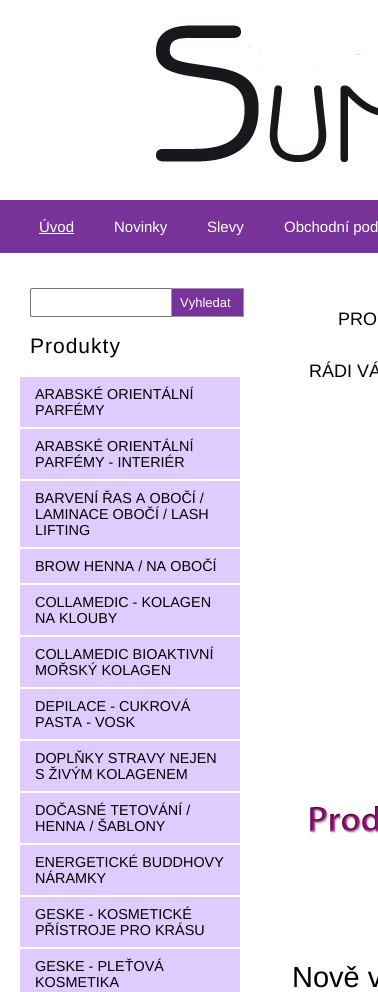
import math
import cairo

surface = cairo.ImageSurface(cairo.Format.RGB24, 378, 992)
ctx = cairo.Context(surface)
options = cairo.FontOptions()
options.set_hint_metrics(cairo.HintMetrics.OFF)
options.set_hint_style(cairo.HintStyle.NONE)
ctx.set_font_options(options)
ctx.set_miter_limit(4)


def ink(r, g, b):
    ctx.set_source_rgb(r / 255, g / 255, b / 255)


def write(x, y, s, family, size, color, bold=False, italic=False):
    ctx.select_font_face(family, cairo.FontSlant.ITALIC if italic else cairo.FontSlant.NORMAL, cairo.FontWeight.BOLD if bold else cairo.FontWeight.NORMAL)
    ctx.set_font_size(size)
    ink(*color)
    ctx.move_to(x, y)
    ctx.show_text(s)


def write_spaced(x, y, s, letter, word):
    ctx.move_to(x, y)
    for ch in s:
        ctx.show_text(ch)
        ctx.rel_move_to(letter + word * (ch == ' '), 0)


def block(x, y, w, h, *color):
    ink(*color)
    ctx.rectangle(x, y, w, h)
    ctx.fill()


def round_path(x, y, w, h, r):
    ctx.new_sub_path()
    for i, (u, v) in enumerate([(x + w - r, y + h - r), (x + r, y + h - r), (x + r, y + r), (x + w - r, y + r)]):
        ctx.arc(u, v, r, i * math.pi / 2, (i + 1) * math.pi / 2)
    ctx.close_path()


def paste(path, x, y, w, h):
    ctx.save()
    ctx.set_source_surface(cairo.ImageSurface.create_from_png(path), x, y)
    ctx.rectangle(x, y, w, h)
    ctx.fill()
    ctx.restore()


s1 = dict(family="Liberation Sans", size=15, color=(255, 255, 255))
s2 = dict(family="Liberation Sans", size=13, color=(255, 255, 255))
s3 = dict(family="Liberation Sans", size=14.4, color=(0, 0, 0))
s4 = dict(family="Liberation Sans", size=18, color=(0, 0, 0))
s5 = dict(family="Liberation Sans", size=29, color=(0, 0, 0))

ink(255, 255, 255)
ctx.paint()
paste("pic1.png", 0, 0, 378, 200)
block(0, 200, 378, 53, 119, 51, 153)
write(39, 232, "Úvod", **s1)
block(39, 233, 35, 1, 255, 255, 255)
write(114, 232, "Novinky", **s1)
write(207, 232, "Slevy", **s1)
write(284, 232, "Obchodní pod", **s1)
round_path(30.5, 288.5, 142, 28, 1.5)
ink(118, 118, 118)
ctx.set_line_width(1)
ctx.stroke()
ink(119, 51, 153)
ctx.rectangle(171.5, 288.5, 72, 28)
ctx.fill_preserve()
ink(153, 153, 153)
ctx.stroke()
write(180, 307, "Vyhledat", **s2)
ctx.set_font_size(21)
ink(0, 0, 0)
write_spaced(30, 353, "Produkty", 1, 0)
block(20, 377, 220, 50, 224, 203, 255)
write(35, 399, "ARABSKÉ ORIENTÁLNÍ", **s3)
write(35, 415, "PARFÉMY", **s3)
block(20, 429, 220, 50, 224, 203, 255)
write(35, 451, "ARABSKÉ ORIENTÁLNÍ", **s3)
write(35, 467, "PARFÉMY - INTERIÉR", **s3)
block(20, 481, 220, 66, 224, 203, 255)
write(35, 503, "BARVENÍ ŘAS A OBOČÍ /", **s3)
write(35, 519, "LAMINACE OBOČÍ / LASH", **s3)
write(35, 535, "LIFTING", **s3)
block(20, 549, 220, 34, 224, 203, 255)
write(35, 571, "BROW HENNA / NA OBOČÍ", **s3)
block(20, 585, 220, 50, 224, 203, 255)
write(35, 607, "COLLAMEDIC - KOLAGEN", **s3)
write(35, 623, "NA KLOUBY", **s3)
block(20, 637, 220, 50, 224, 203, 255)
write(35, 659, "COLLAMEDIC BIOAKTIVNÍ", **s3)
write(35, 675, "MOŘSKÝ KOLAGEN", **s3)
block(20, 689, 220, 50, 224, 203, 255)
write(35, 711, "DEPILACE - CUKROVÁ", **s3)
write(35, 727, "PASTA - VOSK", **s3)
block(20, 741, 220, 50, 224, 203, 255)
write(35, 763, "DOPLŇKY STRAVY NEJEN", **s3)
write(35, 779, "S ŽIVÝM KOLAGENEM", **s3)
block(20, 793, 220, 50, 224, 203, 255)
write(35, 815, "DOČASNÉ TETOVÁNÍ /", **s3)
write(35, 831, "HENNA / ŠABLONY", **s3)
block(20, 845, 220, 50, 224, 203, 255)
write(35, 867, "ENERGETICKÉ BUDDHOVY", **s3)
write(35, 883, "NÁRAMKY", **s3)
block(20, 897, 220, 50, 224, 203, 255)
write(35, 919, "GESKE - KOSMETICKÉ", **s3)
write(35, 935, "PŘÍSTROJE PRO KRÁSU", **s3)
block(20, 949, 220, 43, 224, 203, 255)
write(35, 971, "GESKE - PLEŤOVÁ", **s3)
write(35, 987, "KOSMETIKA", **s3)
write(338, 325, "PRO", **s4)
write(309, 377, "RÁDI VÁ", **s4)
paste("pic2.png", 306, 799, 72, 40)
write(292, 987, "Nově v", **s5)
surface.write_to_png("screenshot.png")
